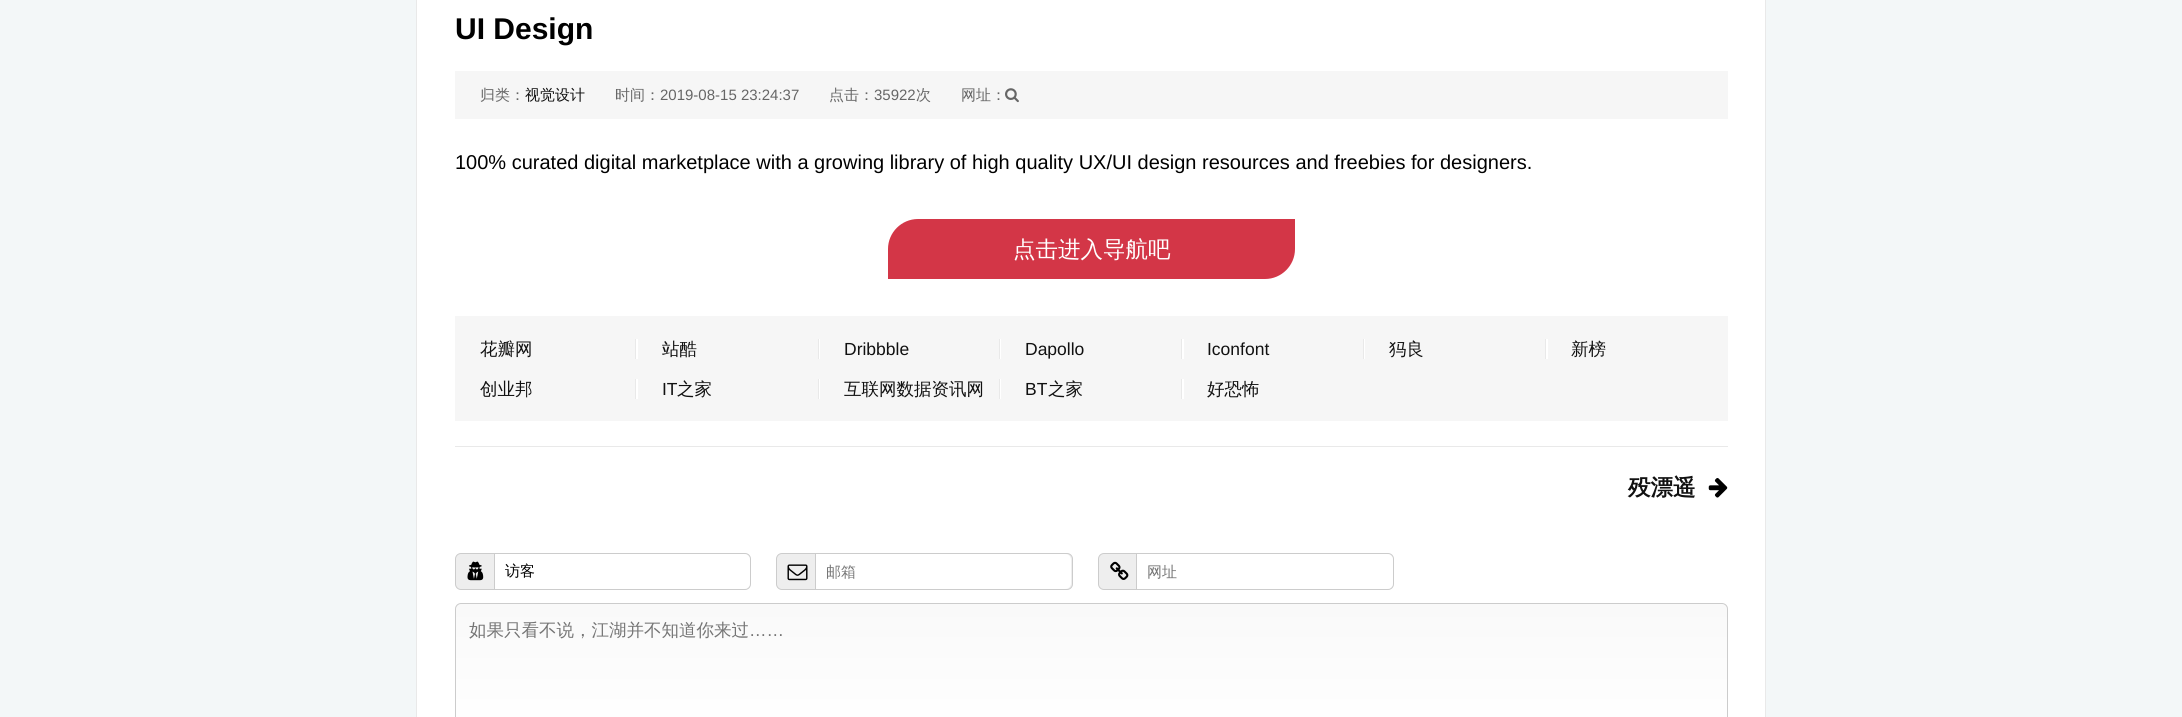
import math
import cairo

surface = cairo.ImageSurface(cairo.Format.RGB24, 2182, 717)
ctx = cairo.Context(surface)
options = cairo.FontOptions()
options.set_hint_metrics(cairo.HintMetrics.OFF)
options.set_hint_style(cairo.HintStyle.NONE)
ctx.set_font_options(options)
ctx.set_miter_limit(4)


def ink(r, g, b):
    ctx.set_source_rgb(r / 255, g / 255, b / 255)


def write(x, y, s, family, size, color, bold=False, italic=False):
    ctx.select_font_face(family, cairo.FontSlant.ITALIC if italic else cairo.FontSlant.NORMAL, cairo.FontWeight.BOLD if bold else cairo.FontWeight.NORMAL)
    ctx.set_font_size(size)
    ink(*color)
    ctx.move_to(x, y)
    ctx.show_text(s)


def block(x, y, w, h, *color):
    ink(*color)
    ctx.rectangle(x, y, w, h)
    ctx.fill()


def round_path(x, y, w, h, r):
    ctx.new_sub_path()
    for i, (u, v) in enumerate([(x + w - r, y + h - r), (x + r, y + h - r), (x + r, y + r), (x + w - r, y + r)]):
        ctx.arc(u, v, r, i * math.pi / 2, (i + 1) * math.pi / 2)
    ctx.close_path()


def paste(path, x, y, w, h):
    ctx.save()
    ctx.set_source_surface(cairo.ImageSurface.create_from_png(path), x, y)
    ctx.rectangle(x, y, w, h)
    ctx.fill()
    ctx.restore()


s1 = dict(family="Liberation Sans", size=30, color=(0, 0, 0), bold=True)
s2 = dict(family="WenQuanYi Zen Hei Medium", size=15, color=(102, 102, 102))
s3 = dict(family="WenQuanYi Zen Hei Medium", size=15, color=(17, 17, 17))
s4 = dict(family="Liberation Sans", size=15, color=(102, 102, 102))
s5 = dict(family="Liberation Sans", size=20, color=(0, 0, 0))
s6 = dict(family="WenQuanYi Zen Hei Medium", size=22.5, color=(255, 255, 255))
s7 = dict(family="WenQuanYi Zen Hei Medium", size=17.5, color=(17, 17, 17))
s8 = dict(family="Liberation Sans", size=17.5, color=(17, 17, 17))
s9 = dict(family="WenQuanYi Zen Hei", size=22.5, color=(17, 17, 17), bold=True)
s10 = dict(family="WenQuanYi Zen Hei Medium", size=15, color=(0, 0, 0))
s11 = dict(family="WenQuanYi Zen Hei Medium", size=15, color=(117, 117, 117))
s12 = dict(family="WenQuanYi Zen Hei Medium", size=17.5, color=(117, 117, 117))
s13 = dict(family="Liberation Sans", size=17.5, color=(117, 117, 117))

ink(243, 247, 248)
ctx.paint()
ink(255, 255, 255)
ctx.rectangle(416.5, -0.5, 1349, 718)
ctx.fill_preserve()
ink(233, 233, 233)
ctx.set_line_width(1)
ctx.stroke()
write(455, 39, "UI Design", **s1)
block(455, 71, 1273, 48, 246, 246, 246)
write(480, 100, "归类：", **s2)
write(525, 100, "视觉设计", **s3)
write(615, 100, "时间：", **s2)
write(660, 100, "2019-08-15 23:24:37", **s4)
write(829, 100, "点击：", **s2)
write(874, 100, "35922", **s4)
write(916, 100, "次", **s2)
write(961, 100, "网址：", **s2)
paste("pic1.png", 1005, 88, 14, 15)
write(455, 169, "100% curated digital marketplace with a growing library of high quality UX/UI design resources and freebies for designers.", **s5)
ink(211, 54, 71)
ctx.new_path()
ctx.move_to(918, 219)
ctx.line_to(1295, 219)
ctx.line_to(1295, 249)
ctx.curve_to(1295, 265.5, 1281.5, 279, 1265, 279)
ctx.line_to(888, 279)
ctx.line_to(888, 249)
ctx.curve_to(888, 232.5, 901.5, 219, 918, 219)
ctx.close_path()
ctx.fill()
write(1013, 257, "点击进入导航吧", **s6)
block(455, 316, 1273, 105, 246, 246, 246)
ink(255, 255, 255)
ctx.new_path()
ctx.move_to(455, 359)
ctx.line_to(638, 359)
ctx.line_to(638, 339)
ctx.line_to(636, 339)
ctx.line_to(636, 359)
ctx.close_path()
ctx.fill()
write(480, 355, "花瓣网", **s7)
ink(255, 255, 255)
ctx.new_path()
ctx.move_to(636, 359)
ctx.line_to(820, 359)
ctx.line_to(820, 339)
ctx.line_to(819, 339)
ctx.line_to(819, 359)
ctx.close_path()
ctx.fill()
block(635, 339, 1, 20, 233, 233, 233)
write(662, 355, "站酷", **s7)
ink(255, 255, 255)
ctx.new_path()
ctx.move_to(819, 359)
ctx.line_to(1001, 359)
ctx.line_to(1001, 339)
ctx.line_to(1000, 339)
ctx.line_to(1000, 359)
ctx.close_path()
ctx.fill()
block(818, 339, 1, 20, 233, 233, 233)
write(844, 355, "Dribbble", **s8)
ink(255, 255, 255)
ctx.new_path()
ctx.move_to(1000, 359)
ctx.line_to(1184, 359)
ctx.line_to(1184, 339)
ctx.line_to(1182, 339)
ctx.line_to(1182, 359)
ctx.close_path()
ctx.fill()
block(999, 339, 1, 20, 233, 233, 233)
write(1025, 355, "Dapollo", **s8)
ink(255, 255, 255)
ctx.new_path()
ctx.move_to(1183, 359)
ctx.line_to(1365, 359)
ctx.line_to(1365, 339)
ctx.line_to(1364, 339)
ctx.line_to(1364, 359)
ctx.close_path()
ctx.fill()
block(1181, 339, 1, 20, 233, 233, 233)
write(1207, 355, "Iconfont", **s8)
ink(255, 255, 255)
ctx.new_path()
ctx.move_to(1364, 359)
ctx.line_to(1548, 359)
ctx.line_to(1548, 339)
ctx.line_to(1546, 339)
ctx.line_to(1546, 359)
ctx.close_path()
ctx.fill()
block(1363, 339, 1, 20, 233, 233, 233)
write(1389, 355, "犸良", **s7)
block(1545, 339, 1, 20, 233, 233, 233)
write(1571, 355, "新榜", **s7)
ink(255, 255, 255)
ctx.new_path()
ctx.move_to(455, 399)
ctx.line_to(638, 399)
ctx.line_to(638, 379)
ctx.line_to(636, 379)
ctx.line_to(636, 399)
ctx.close_path()
ctx.fill()
write(480, 395, "创业邦", **s7)
ink(255, 255, 255)
ctx.new_path()
ctx.move_to(636, 399)
ctx.line_to(820, 399)
ctx.line_to(820, 379)
ctx.line_to(819, 379)
ctx.line_to(819, 399)
ctx.close_path()
ctx.fill()
block(635, 379, 1, 20, 233, 233, 233)
write(662, 395, "IT", **s8)
write(677, 395, "之家", **s7)
ink(255, 255, 255)
ctx.new_path()
ctx.move_to(819, 399)
ctx.line_to(1001, 399)
ctx.line_to(1001, 379)
ctx.line_to(1000, 379)
ctx.line_to(1000, 399)
ctx.close_path()
ctx.fill()
block(818, 379, 1, 20, 233, 233, 233)
write(844, 395, "互联网数据资讯网", **s7)
ink(255, 255, 255)
ctx.new_path()
ctx.move_to(1000, 399)
ctx.line_to(1184, 399)
ctx.line_to(1184, 379)
ctx.line_to(1182, 379)
ctx.line_to(1182, 399)
ctx.close_path()
ctx.fill()
block(999, 379, 1, 20, 233, 233, 233)
write(1025, 395, "BT", **s8)
write(1048, 395, "之家", **s7)
block(1181, 379, 1, 20, 233, 233, 233)
write(1207, 395, "好恐怖", **s7)
block(455, 446, 1273, 1, 233, 233, 233)
write(1628, 495, "殁漂遥", **s9)
paste("pic2.png", 1708, 478, 20, 20)
ink(238, 238, 238)
round_path(455.5, 553.5, 295, 36, 5.5)
ctx.fill_preserve()
ink(204, 204, 204)
ctx.stroke()
paste("pic3.png", 467, 561, 17, 20)
ink(255, 255, 255)
ctx.new_path()
ctx.move_to(494, 554)
ctx.line_to(744, 554)
ctx.curve_to(747.5, 554, 750, 556.5, 750, 560)
ctx.line_to(750, 583)
ctx.curve_to(750, 586.5, 747.5, 589, 744, 589)
ctx.line_to(494, 589)
ctx.close_path()
ctx.fill()
block(494, 554, 1, 35, 204, 204, 204)
write(505, 576, "访客", **s10)
ink(238, 238, 238)
round_path(776.5, 553.5, 296, 36, 5.5)
ctx.fill_preserve()
ink(204, 204, 204)
ctx.stroke()
paste("pic4.png", 787, 564, 21, 17)
ink(255, 255, 255)
ctx.new_path()
ctx.move_to(815, 554)
ctx.line_to(1065, 554)
ctx.curve_to(1068.5, 554, 1071, 556.5, 1071, 560)
ctx.line_to(1071, 583)
ctx.curve_to(1071, 586.5, 1068.5, 589, 1065, 589)
ctx.line_to(815, 589)
ctx.close_path()
ctx.fill()
block(815, 554, 1, 35, 204, 204, 204)
write(826, 577, "邮箱", **s11)
ink(238, 238, 238)
round_path(1098.5, 553.5, 295, 36, 5.5)
ctx.fill_preserve()
ink(204, 204, 204)
ctx.stroke()
paste("pic5.png", 1110, 561, 19, 19)
ink(255, 255, 255)
ctx.new_path()
ctx.move_to(1136, 554)
ctx.line_to(1387, 554)
ctx.curve_to(1390.5, 554, 1393, 556.5, 1393, 560)
ctx.line_to(1393, 583)
ctx.curve_to(1393, 586.5, 1390.5, 589, 1387, 589)
ctx.line_to(1136, 589)
ctx.close_path()
ctx.fill()
block(1136, 554, 1, 35, 204, 204, 204)
write(1147, 577, "网址", **s11)
ctx.save()
ctx.new_path()
ctx.move_to(461, 603)
ctx.line_to(1722, 603)
ctx.curve_to(1725.5, 603, 1728, 605.5, 1728, 609)
ctx.line_to(1728, 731)
ctx.line_to(455, 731)
ctx.line_to(455, 609)
ctx.curve_to(455, 605.5, 457.5, 603, 461, 603)
ctx.close_path()
ctx.clip()
gradient = cairo.LinearGradient(1091, 604, 1091, 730)
gradient.add_color_stop_rgba(0, 0.976, 0.976, 0.976, 1)
gradient.add_color_stop_rgba(1, 1, 1, 1, 1)
ctx.set_source(gradient)
ctx.rectangle(455, 604, 1273, 113)
ctx.fill()
ctx.restore()
ctx.new_path()
ctx.move_to(461, 603.5)
ctx.line_to(1722, 603.5)
ctx.curve_to(1725, 603.5, 1727.5, 606, 1727.5, 609)
ctx.line_to(1727.5, 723.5)
ctx.line_to(455.5, 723.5)
ctx.line_to(455.5, 609)
ctx.curve_to(455.5, 606, 458, 603.5, 461, 603.5)
ctx.close_path()
ink(204, 204, 204)
ctx.stroke()
write(469, 636, "如果只看不说，江湖并不知道你来过", **s12)
write(749, 636, "……", **s13)
surface.write_to_png("screenshot.png")
